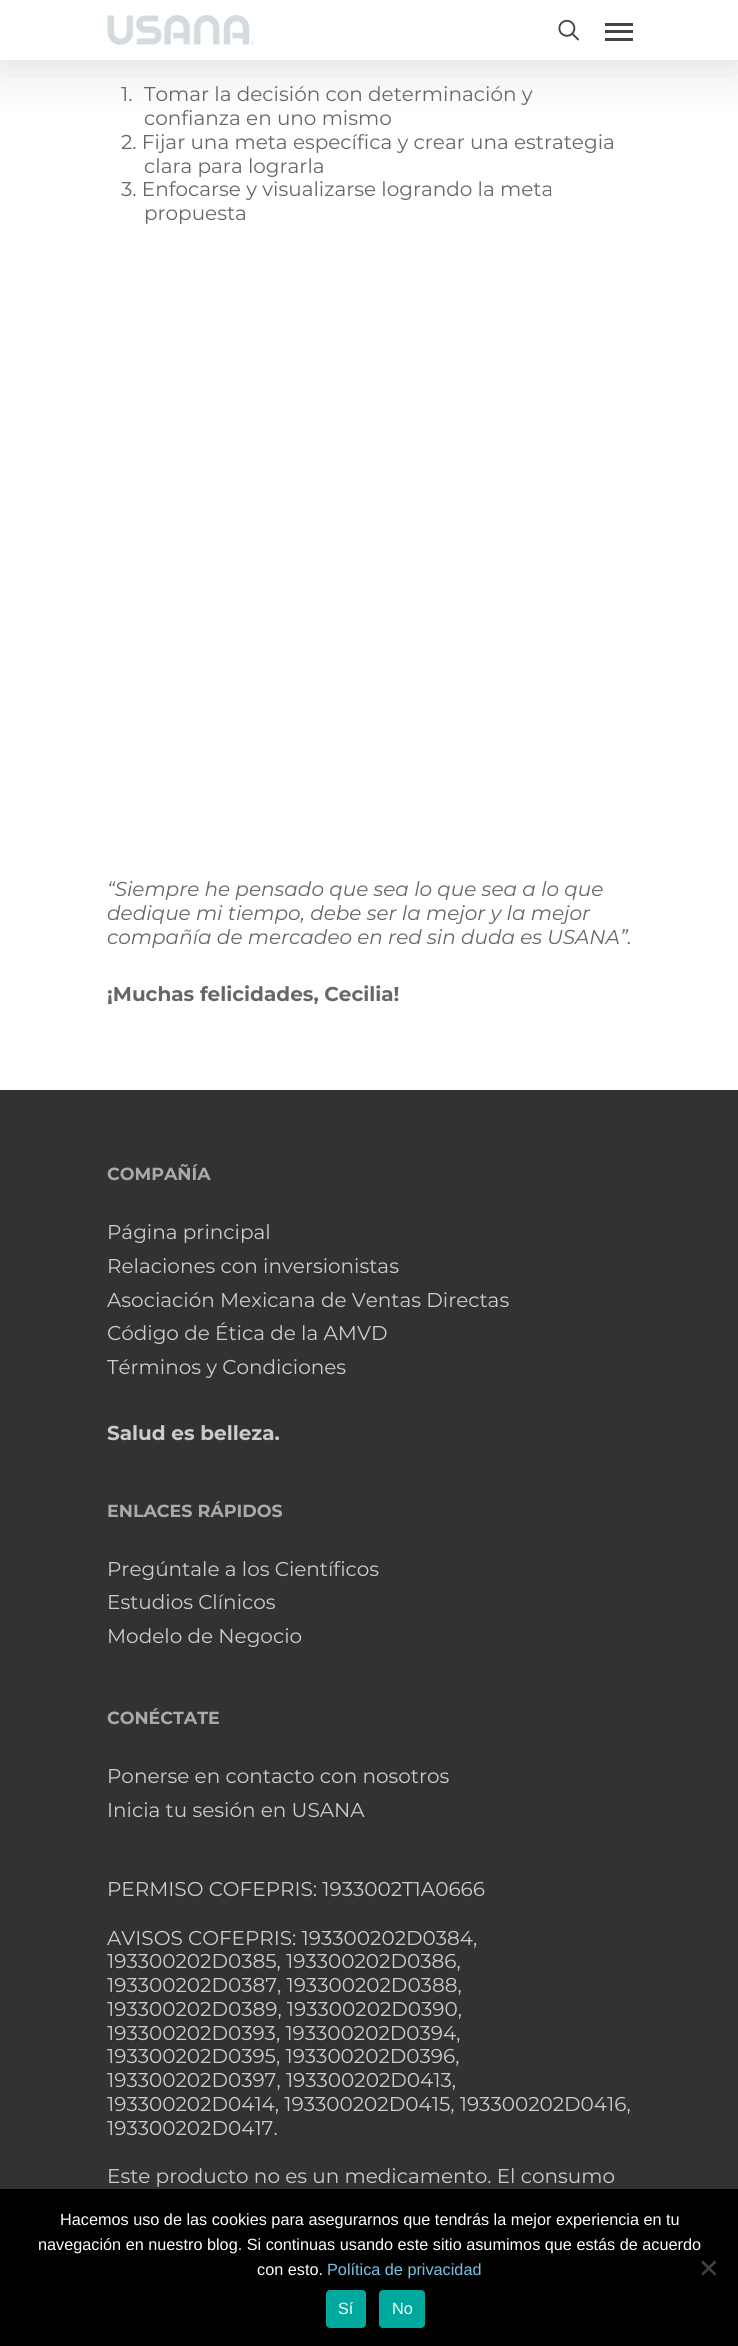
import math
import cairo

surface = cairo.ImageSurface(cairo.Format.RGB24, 738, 2346)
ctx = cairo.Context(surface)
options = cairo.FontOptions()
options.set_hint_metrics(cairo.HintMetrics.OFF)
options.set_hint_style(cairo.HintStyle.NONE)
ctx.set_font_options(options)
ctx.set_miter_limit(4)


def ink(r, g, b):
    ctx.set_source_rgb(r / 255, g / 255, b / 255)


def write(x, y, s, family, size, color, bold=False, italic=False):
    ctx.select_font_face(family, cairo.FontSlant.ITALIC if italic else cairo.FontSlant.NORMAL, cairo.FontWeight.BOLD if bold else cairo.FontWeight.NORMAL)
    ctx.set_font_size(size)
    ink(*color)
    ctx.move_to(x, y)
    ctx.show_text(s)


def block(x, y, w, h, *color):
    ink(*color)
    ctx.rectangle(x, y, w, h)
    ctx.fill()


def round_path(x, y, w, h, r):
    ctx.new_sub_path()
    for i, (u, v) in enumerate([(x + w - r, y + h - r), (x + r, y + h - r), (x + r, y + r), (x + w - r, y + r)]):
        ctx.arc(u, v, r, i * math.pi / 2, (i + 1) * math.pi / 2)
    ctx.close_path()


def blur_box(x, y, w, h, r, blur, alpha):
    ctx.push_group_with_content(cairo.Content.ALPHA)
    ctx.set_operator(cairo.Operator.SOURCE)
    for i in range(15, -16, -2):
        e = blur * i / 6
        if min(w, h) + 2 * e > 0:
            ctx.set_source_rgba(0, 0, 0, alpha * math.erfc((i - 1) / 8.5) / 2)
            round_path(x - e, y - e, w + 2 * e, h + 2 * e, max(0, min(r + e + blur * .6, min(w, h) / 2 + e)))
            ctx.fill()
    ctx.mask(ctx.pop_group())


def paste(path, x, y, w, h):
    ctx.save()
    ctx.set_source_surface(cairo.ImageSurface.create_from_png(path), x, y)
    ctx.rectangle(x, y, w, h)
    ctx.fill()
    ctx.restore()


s1 = dict(family="Montserrat", size=20, color=(103, 103, 103))
s2 = dict(family="Montserrat Thin", size=20, color=(103, 103, 103), italic=True)
s3 = dict(family="Montserrat", size=20, color=(103, 103, 103), bold=True)
s4 = dict(family="Montserrat", size=17.5, color=(170, 170, 170), bold=True)
s5 = dict(family="Montserrat", size=20, color=(204, 204, 204))
s6 = dict(family="Montserrat", size=20, color=(204, 204, 204), bold=True)
s7 = dict(family="Liberation Sans", size=16.25, color=(255, 255, 255))
s8 = dict(family="Liberation Sans", size=16.25, color=(120, 195, 230))

ink(255, 255, 255)
ctx.paint()
ink(0, 0, 0)
blur_box(0, 4, 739, 60, 0, 28, 0.15)
block(0, 0, 738, 60, 255, 255, 255)
paste("pic1.png", 107, 15, 147, 30)
paste("pic2.png", 558, 19, 21, 22)
block(605, 23, 28, 3, 68, 68, 68)
block(605, 38, 28, 3, 68, 68, 68)
block(605, 30, 28, 3, 68, 68, 68)
write(121, 101, "1.", **s1)
write(144, 101, "Tomar la decisión con determinación y", **s1)
write(144, 125, "confianza en uno mismo", **s1)
write(121, 149, "2. Fijar una meta específica y crear una estrategia", **s1)
write(144, 173, "clara para lograrla", **s1)
write(121, 196, "3. Enfocarse y visualizarse logrando la meta", **s1)
write(144, 220, "propuesta", **s1)
write(107, 896, "“Siempre he pensado que sea lo que sea a lo que", **s2)
write(107, 920, "dedique mi tiempo, debe ser la mejor y la mejor", **s2)
write(107, 944, "compañía de mercadeo en red sin duda es USANA”.", **s2)
write(107, 1001, "¡Muchas felicidades, Cecilia!", **s3)
block(0, 1090, 738, 1099, 49, 50, 51)
write(107, 1180, "COMPAÑÍA", **s4)
write(107, 1239, "Página principal", **s5)
write(107, 1273, "Relaciones con inversionistas", **s5)
write(107, 1307, "Asociación Mexicana de Ventas Directas", **s5)
write(107, 1340, "Código de Ética de la AMVD", **s5)
write(107, 1374, "Términos y Condiciones", **s5)
write(107, 1440, "Salud es belleza.", **s6)
write(107, 1517, "ENLACES RÁPIDOS", **s4)
write(107, 1576, "Pregúntale a los Científicos", **s5)
write(107, 1609, "Estudios Clínicos", **s5)
write(107, 1643, "Modelo de Negocio", **s5)
write(107, 1724, "CONÉCTATE", **s4)
write(107, 1783, "Ponerse en contacto con nosotros", **s5)
write(107, 1817, "Inicia tu sesión en USANA", **s5)
write(107, 1896, "PERMISO COFEPRIS: 1933002T1A0666", **s5)
write(107, 1945, "AVISOS COFEPRIS: 193300202D0384,", **s5)
write(107, 1968, "193300202D0385, 193300202D0386,", **s5)
write(107, 1992, "193300202D0387, 193300202D0388,", **s5)
write(107, 2016, "193300202D0389, 193300202D0390,", **s5)
write(107, 2040, "193300202D0393, 193300202D0394,", **s5)
write(107, 2063, "193300202D0395, 193300202D0396,", **s5)
write(107, 2087, "193300202D0397, 193300202D0413,", **s5)
write(107, 2111, "193300202D0414, 193300202D0415, 193300202D0416,", **s5)
write(107, 2135, "193300202D0417.", **s5)
write(107, 2183, "Este producto no es un medicamento. El consumo", **s5)
block(0, 2189, 738, 157, 0, 0, 0)
write(60, 2225, "Hacemos uso de las cookies para asegurarnos que tendrás la mejor experiencia en tu", **s7)
write(38, 2250, "navegación en nuestro blog. Si continuas usando este sitio asumimos que estás de acuerdo", **s7)
write(257, 2275, "con esto.", **s7)
write(327, 2275, "Política de privacidad", **s8)
ink(64, 64, 64)
ctx.new_path()
ctx.move_to(714.5, 2260.5)
ctx.line_to(716.5, 2262.5)
ctx.line_to(703, 2275.5)
ctx.line_to(701, 2274)
ctx.close_path()
ctx.fill()
ctx.new_path()
ctx.move_to(701, 2262.5)
ctx.line_to(703, 2260.5)
ctx.line_to(716.5, 2274)
ctx.line_to(714.5, 2275.5)
ctx.close_path()
ctx.fill()
ink(0, 169, 157)
round_path(326, 2290, 40, 38, 4)
ctx.fill()
write(338, 2314, "Sí", **s7)
ink(0, 169, 157)
round_path(379, 2290, 46, 38, 4)
ctx.fill()
write(392, 2314, "No", **s7)
surface.write_to_png("screenshot.png")
